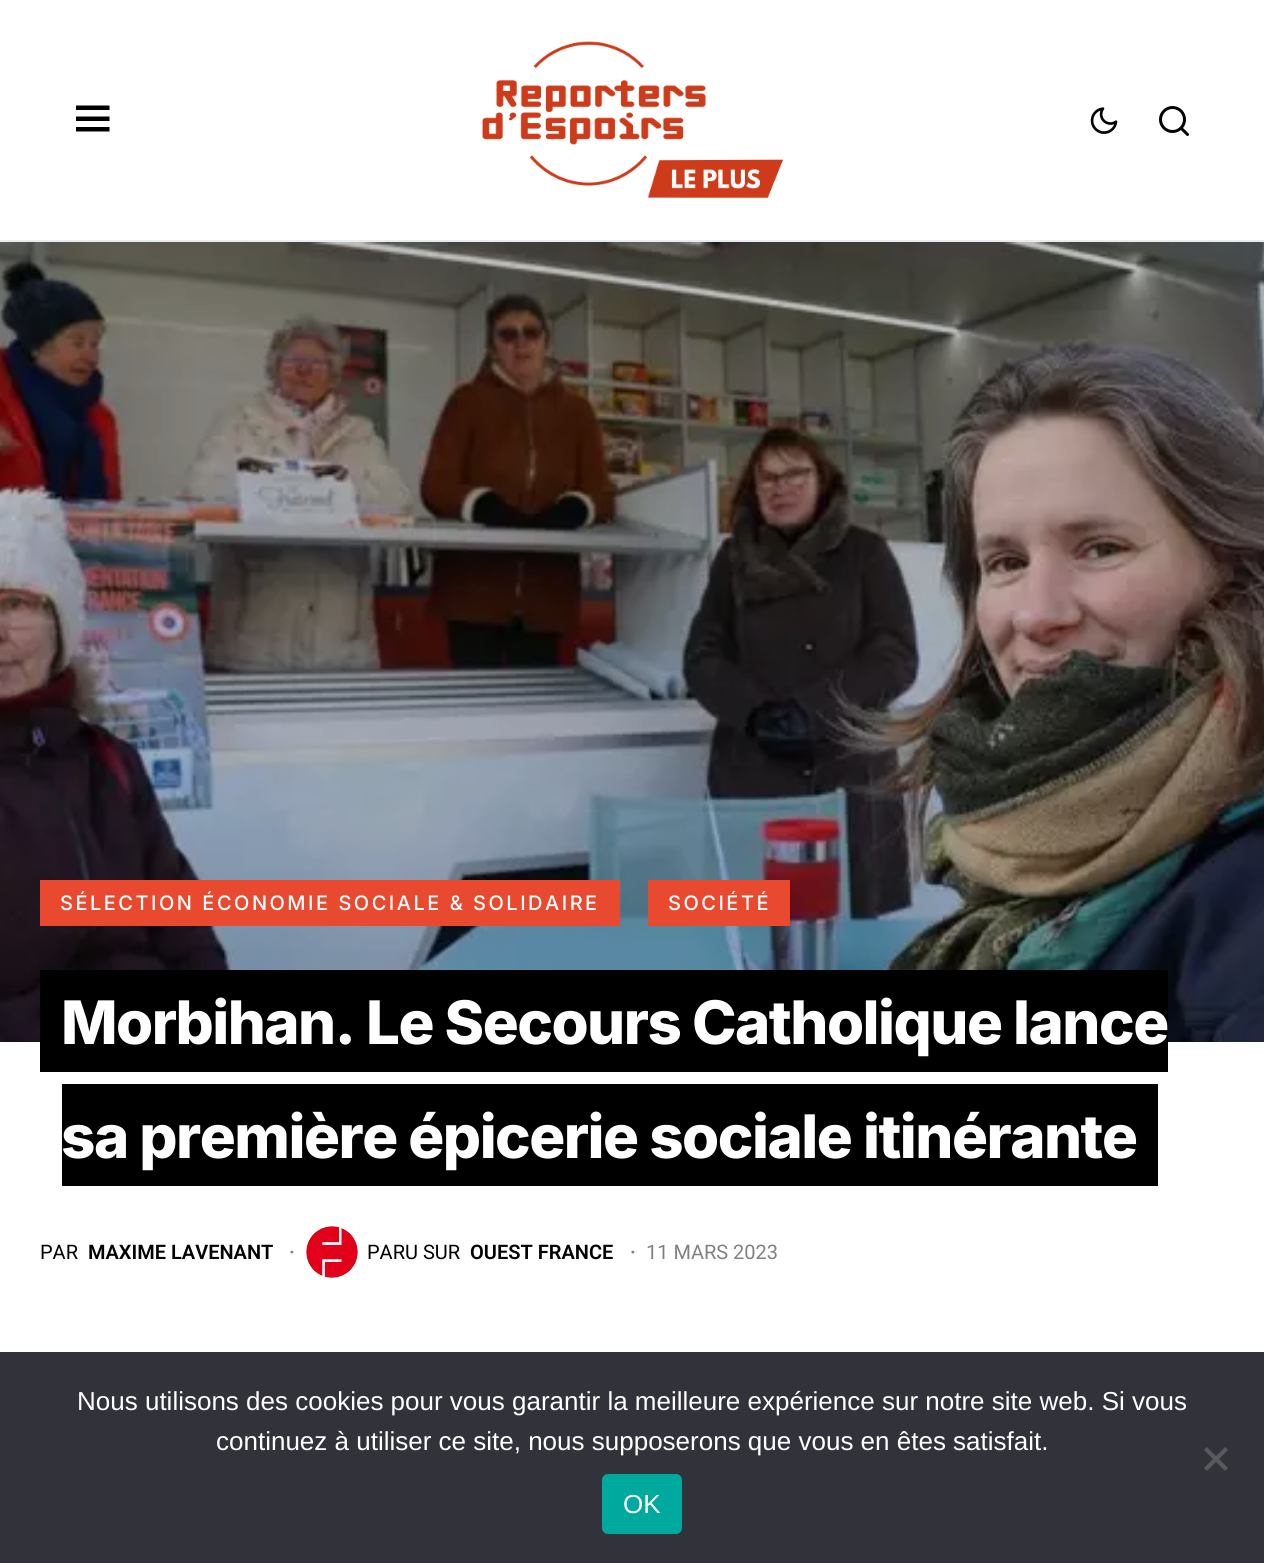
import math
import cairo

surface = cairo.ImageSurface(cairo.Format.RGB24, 1264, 1563)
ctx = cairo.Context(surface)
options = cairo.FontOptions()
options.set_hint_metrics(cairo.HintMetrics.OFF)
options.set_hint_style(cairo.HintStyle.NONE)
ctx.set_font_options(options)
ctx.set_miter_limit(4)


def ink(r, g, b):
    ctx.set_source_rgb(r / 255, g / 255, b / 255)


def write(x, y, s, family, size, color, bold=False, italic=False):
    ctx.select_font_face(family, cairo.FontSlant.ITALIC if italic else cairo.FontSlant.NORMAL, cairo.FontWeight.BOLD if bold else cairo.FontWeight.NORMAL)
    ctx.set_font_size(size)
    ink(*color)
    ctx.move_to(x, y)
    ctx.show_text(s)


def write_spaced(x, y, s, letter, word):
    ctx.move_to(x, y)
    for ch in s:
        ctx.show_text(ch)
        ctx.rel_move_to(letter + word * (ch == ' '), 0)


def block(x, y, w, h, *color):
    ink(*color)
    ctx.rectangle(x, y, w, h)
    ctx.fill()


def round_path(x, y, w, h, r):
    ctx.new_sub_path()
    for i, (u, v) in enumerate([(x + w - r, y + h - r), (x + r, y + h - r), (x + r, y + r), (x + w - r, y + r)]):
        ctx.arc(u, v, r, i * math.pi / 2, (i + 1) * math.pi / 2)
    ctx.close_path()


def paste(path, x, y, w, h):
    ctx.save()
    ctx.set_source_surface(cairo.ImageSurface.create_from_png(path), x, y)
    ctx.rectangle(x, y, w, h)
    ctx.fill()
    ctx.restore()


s1 = dict(family="Roboto", size=20, color=(0, 0, 0))
s2 = dict(family="Roboto SemiBold", size=20, color=(0, 0, 0))
s3 = dict(family="Roboto SemiBold", size=20, color=(129, 129, 129))
s4 = dict(family="Roboto", size=20, color=(129, 129, 129))
s5 = dict(family="Liberation Sans", size=26, color=(255, 255, 255))

ink(255, 255, 255)
ctx.paint()
block(0, 240, 1264, 2, 233, 236, 239)
ink(0, 0, 0)
ctx.new_path()
ctx.move_to(76, 105.5)
ctx.line_to(109.5, 105.5)
ctx.line_to(109.5, 110)
ctx.line_to(76, 110)
ctx.close_path()
ctx.move_to(76, 116.5)
ctx.line_to(109.5, 116.5)
ctx.line_to(109.5, 121)
ctx.line_to(76, 121)
ctx.close_path()
ctx.move_to(76, 127)
ctx.line_to(109.5, 127)
ctx.line_to(109.5, 131.5)
ctx.line_to(76, 131.5)
ctx.close_path()
ctx.fill()
paste("pic1.png", 482, 41, 302, 158)
paste("pic2.png", 1090, 107, 28, 27)
paste("pic3.png", 1159, 106, 30, 30)
paste("pic4.png", 0, 242, 1264, 800)
block(40, 880, 580, 46, 233, 73, 46)
ctx.select_font_face("Inter Medium")
ctx.set_font_size(20)
ink(255, 255, 255)
write_spaced(60, 910, "SÉLECTION ÉCONOMIE SOCIALE & SOLIDAIRE", 2.5, 0)
block(648, 880, 142, 46, 233, 73, 46)
ink(255, 255, 255)
write_spaced(668, 910, "SOCIÉTÉ", 2.5, 0)
block(40, 970, 1128, 102, 0, 0, 0)
ctx.select_font_face("Inter ExtraBold")
ctx.set_font_size(60)
ink(255, 255, 255)
write_spaced(61, 1044, "Morbihan. Le Secours Catholique lance", -1.5, 0)
block(62, 1084, 1096, 102, 0, 0, 0)
ink(255, 255, 255)
write_spaced(61, 1158, "sa première épicerie sociale itinérante", -1.5, 0)
write(40, 1259, "PAR", **s1)
write(88, 1259, "MAXIME LAVENANT", **s2)
write(289, 1259, "·", **s3)
paste("pic5.png", 306, 1226, 52, 52)
write(367, 1259, "PARU SUR", **s1)
write(470, 1259, "OUEST FRANCE", **s2)
write(630, 1259, "·", **s3)
write(646, 1259, "11 MARS 2023", **s4)
block(0, 1352, 1264, 211, 50, 50, 58)
write(77, 1410, "Nous utilisons des cookies pour vous garantir la meilleure expérience sur notre site web. Si vous", **s5)
write(216, 1450, "continuez à utiliser ce site, nous supposerons que vous en êtes satisfait.", **s5)
ink(89, 89, 93)
ctx.new_path()
ctx.move_to(1225, 1447)
ctx.line_to(1228, 1450)
ctx.line_to(1207, 1471)
ctx.line_to(1204, 1468)
ctx.close_path()
ctx.fill()
ctx.new_path()
ctx.move_to(1204, 1450)
ctx.line_to(1207, 1447)
ctx.line_to(1228, 1468)
ctx.line_to(1225, 1471)
ctx.close_path()
ctx.fill()
ink(0, 169, 157)
round_path(602, 1474, 80, 60, 6)
ctx.fill()
write(623, 1513, "OK", **s5)
surface.write_to_png("screenshot.png")
